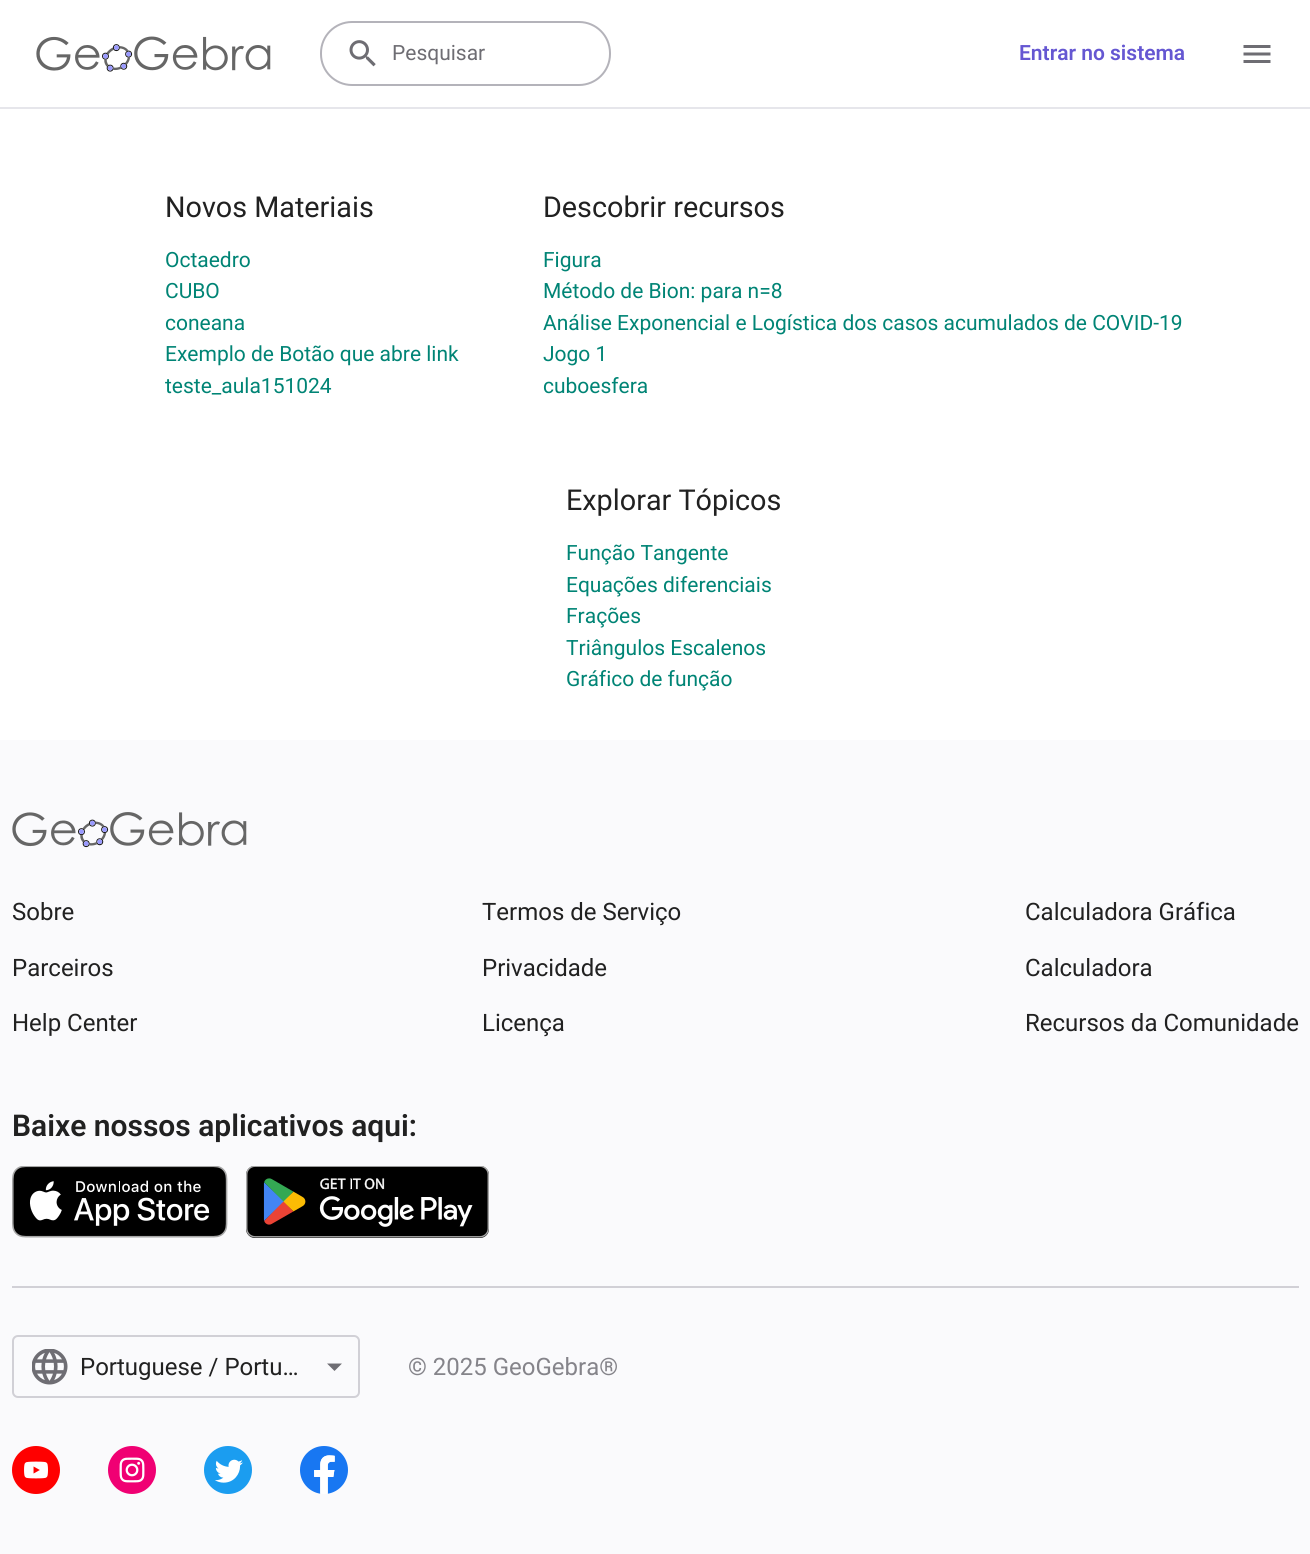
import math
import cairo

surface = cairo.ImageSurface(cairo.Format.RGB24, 1310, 1554)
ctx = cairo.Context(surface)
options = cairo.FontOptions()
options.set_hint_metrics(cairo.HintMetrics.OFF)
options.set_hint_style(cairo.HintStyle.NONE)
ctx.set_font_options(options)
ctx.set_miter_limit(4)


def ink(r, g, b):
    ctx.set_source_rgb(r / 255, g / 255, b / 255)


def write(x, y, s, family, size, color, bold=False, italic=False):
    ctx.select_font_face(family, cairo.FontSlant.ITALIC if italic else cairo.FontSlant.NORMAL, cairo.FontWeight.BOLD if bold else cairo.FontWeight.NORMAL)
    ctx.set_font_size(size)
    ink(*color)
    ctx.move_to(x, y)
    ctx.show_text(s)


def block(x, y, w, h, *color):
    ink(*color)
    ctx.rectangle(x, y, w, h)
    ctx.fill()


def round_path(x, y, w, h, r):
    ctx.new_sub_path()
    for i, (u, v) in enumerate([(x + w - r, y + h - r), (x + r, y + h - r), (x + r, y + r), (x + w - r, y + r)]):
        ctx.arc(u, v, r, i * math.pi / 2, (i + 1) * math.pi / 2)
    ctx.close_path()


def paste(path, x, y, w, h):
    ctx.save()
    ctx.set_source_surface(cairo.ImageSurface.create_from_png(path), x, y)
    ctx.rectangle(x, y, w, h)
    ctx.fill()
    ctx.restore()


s1 = dict(family="Roboto", size=21, color=(110, 109, 115))
s2 = dict(family="Roboto SemiBold", size=21, color=(101, 87, 210))
s3 = dict(family="Roboto", size=28.75, color=(33, 33, 33))
s4 = dict(family="Roboto", size=21, color=(0, 132, 117))
s5 = dict(family="Roboto", size=24, color=(33, 33, 33))
s6 = dict(family="Roboto SemiBold", size=30, color=(33, 33, 33))
s7 = dict(family="Roboto", size=24, color=(133, 132, 138))

ink(255, 255, 255)
ctx.paint()
block(0, 107, 1310, 2, 230, 230, 235)
paste("pic1.png", 36, 36, 235, 36)
round_path(321, 22, 289, 63, 31)
ink(180, 179, 186)
ctx.stroke()
paste("pic2.png", 349, 40, 27, 27)
write(392, 60, "Pesquisar", **s1)
write(1019, 60, "Entrar no sistema", **s2)
paste("pic3.png", 1243, 45, 28, 18)
write(165, 217, "Novos Materiais", **s3)
write(165, 267, "Octaedro", **s4)
write(165, 298, "CUBO", **s4)
write(165, 330, "coneana", **s4)
write(165, 361, "Exemplo de Botão que abre link", **s4)
write(165, 393, "teste_aula151024", **s4)
write(543, 217, "Descobrir recursos", **s3)
write(543, 267, "Figura", **s4)
write(543, 298, "Método de Bion: para n=8", **s4)
write(543, 330, "Análise Exponencial e Logística dos casos acumulados de COVID-19", **s4)
write(543, 361, "Jogo 1", **s4)
write(543, 393, "cuboesfera", **s4)
write(566, 510, "Explorar Tópicos", **s3)
write(566, 560, "Função Tangente", **s4)
write(566, 592, "Equações diferenciais", **s4)
write(566, 623, "Frações", **s4)
write(566, 655, "Triângulos Escalenos", **s4)
write(566, 686, "Gráfico de função", **s4)
block(0, 740, 1310, 814, 250, 250, 252)
paste("pic4.png", 12, 812, 235, 36)
write(12, 920, "Sobre", **s5)
write(12, 976, "Parceiros", **s5)
write(12, 1031, "Help Center", **s5)
write(482, 920, "Termos de Serviço", **s5)
write(482, 976, "Privacidade", **s5)
write(482, 1031, "Licença", **s5)
write(1025, 920, "Calculadora Gráfica", **s5)
write(1025, 976, "Calculadora", **s5)
write(1025, 1031, "Recursos da Comunidade", **s5)
write(12, 1136, "Baixe nossos aplicativos aqui:", **s6)
paste("pic5.png", 12, 1166, 216, 72)
paste("pic6.png", 246, 1166, 243, 72)
block(12, 1286, 1287, 2, 209, 208, 214)
round_path(13, 1336, 346, 61, 5)
ctx.stroke()
paste("pic7.png", 32, 1349, 36, 36)
write(80, 1375, "Portuguese / Portu…", **s5)
ink(110, 109, 115)
ctx.new_path()
ctx.move_to(327, 1363.5)
ctx.line_to(334.5, 1371)
ctx.line_to(342, 1363.5)
ctx.close_path()
ctx.fill()
write(408, 1375, "© 2025 GeoGebra®", **s7)
paste("pic8.png", 12, 1446, 48, 48)
paste("pic9.png", 108, 1446, 48, 48)
paste("pic10.png", 204, 1446, 48, 48)
paste("pic11.png", 300, 1446, 48, 48)
surface.write_to_png("screenshot.png")
